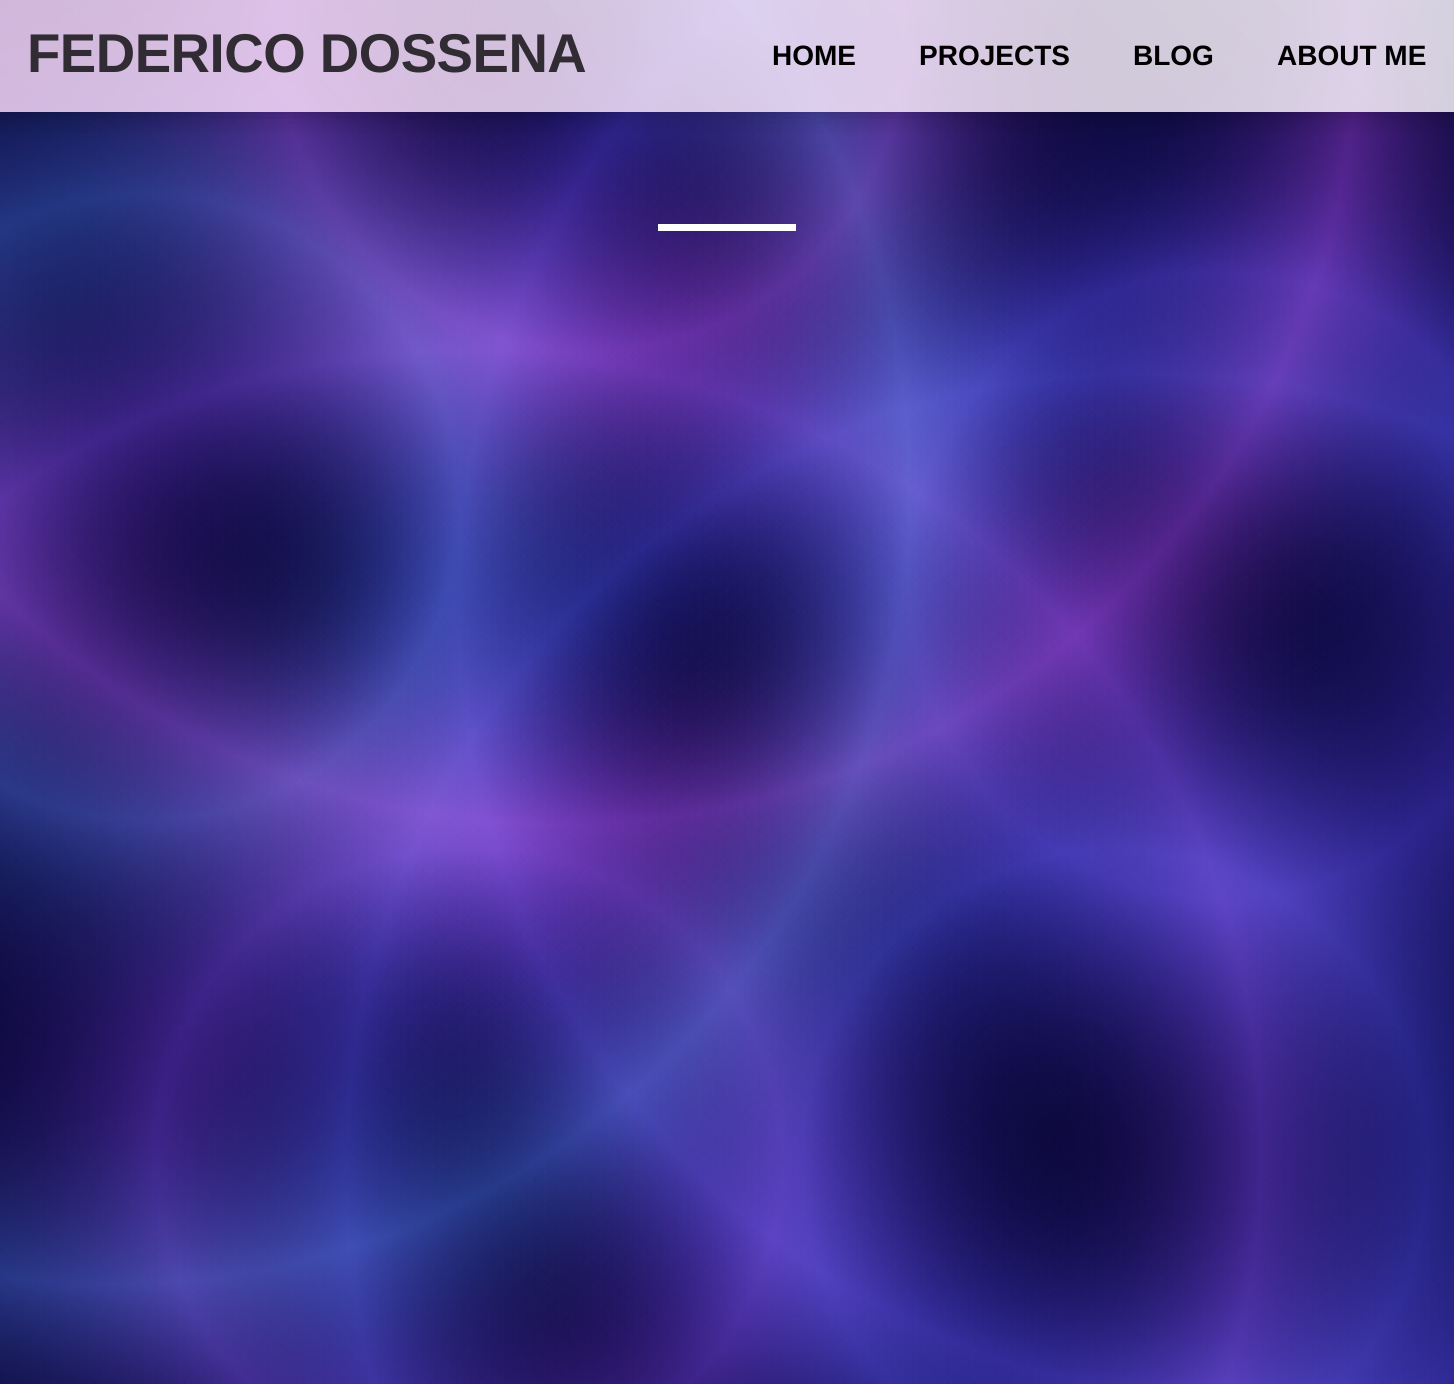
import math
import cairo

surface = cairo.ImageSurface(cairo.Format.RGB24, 1454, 1384)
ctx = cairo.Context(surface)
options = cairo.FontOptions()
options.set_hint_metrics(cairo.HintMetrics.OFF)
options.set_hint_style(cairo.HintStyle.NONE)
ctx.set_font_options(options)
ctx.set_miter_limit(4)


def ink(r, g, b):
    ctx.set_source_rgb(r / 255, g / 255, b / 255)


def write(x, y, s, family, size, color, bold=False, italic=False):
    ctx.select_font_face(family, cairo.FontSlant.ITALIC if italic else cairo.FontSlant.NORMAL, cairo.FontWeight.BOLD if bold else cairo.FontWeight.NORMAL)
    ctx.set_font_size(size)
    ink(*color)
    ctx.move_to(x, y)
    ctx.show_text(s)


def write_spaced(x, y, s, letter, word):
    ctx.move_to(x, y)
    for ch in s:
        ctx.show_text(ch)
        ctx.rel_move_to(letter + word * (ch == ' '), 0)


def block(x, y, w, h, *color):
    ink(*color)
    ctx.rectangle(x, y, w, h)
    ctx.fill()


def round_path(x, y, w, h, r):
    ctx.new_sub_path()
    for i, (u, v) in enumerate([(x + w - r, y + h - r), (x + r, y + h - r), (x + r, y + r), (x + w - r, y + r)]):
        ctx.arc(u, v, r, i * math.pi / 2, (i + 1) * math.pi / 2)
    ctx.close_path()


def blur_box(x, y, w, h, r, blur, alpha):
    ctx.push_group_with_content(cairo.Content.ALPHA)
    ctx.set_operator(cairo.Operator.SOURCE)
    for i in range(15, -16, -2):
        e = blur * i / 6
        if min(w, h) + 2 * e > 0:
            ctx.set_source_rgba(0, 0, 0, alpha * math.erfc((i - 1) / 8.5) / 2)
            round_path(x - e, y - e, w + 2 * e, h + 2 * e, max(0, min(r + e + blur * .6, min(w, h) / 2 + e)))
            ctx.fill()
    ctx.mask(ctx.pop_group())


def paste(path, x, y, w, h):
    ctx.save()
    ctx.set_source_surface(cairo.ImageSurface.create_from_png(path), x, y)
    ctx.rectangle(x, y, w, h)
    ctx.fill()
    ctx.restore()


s1 = dict(family="Liberation Sans", size=28, color=(0, 0, 0), bold=True)

ink(255, 255, 255)
ctx.paint()
paste("pic1.png", 0, 0, 1454, 1384)
ctx.save()
ctx.rectangle(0, 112, 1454, 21)
ctx.clip()
ink(0, 0, 0)
blur_box(0, 0, 1454, 112, 0, 14, 0.3)
ctx.restore()
ctx.select_font_face("Liberation Sans", cairo.FontSlant.NORMAL, cairo.FontWeight.BOLD)
ctx.set_font_size(54.6)
ink(49, 44, 52)
write_spaced(27, 72, "FEDERICO DOSSENA", -0.5, 0)
write(772, 65, "HOME", **s1)
write(919, 65, "PROJECTS", **s1)
write(1133, 65, "BLOG", **s1)
write(1277, 65, "ABOUT ME", **s1)
block(658, 224, 138, 7, 255, 255, 255)
surface.write_to_png("screenshot.png")
